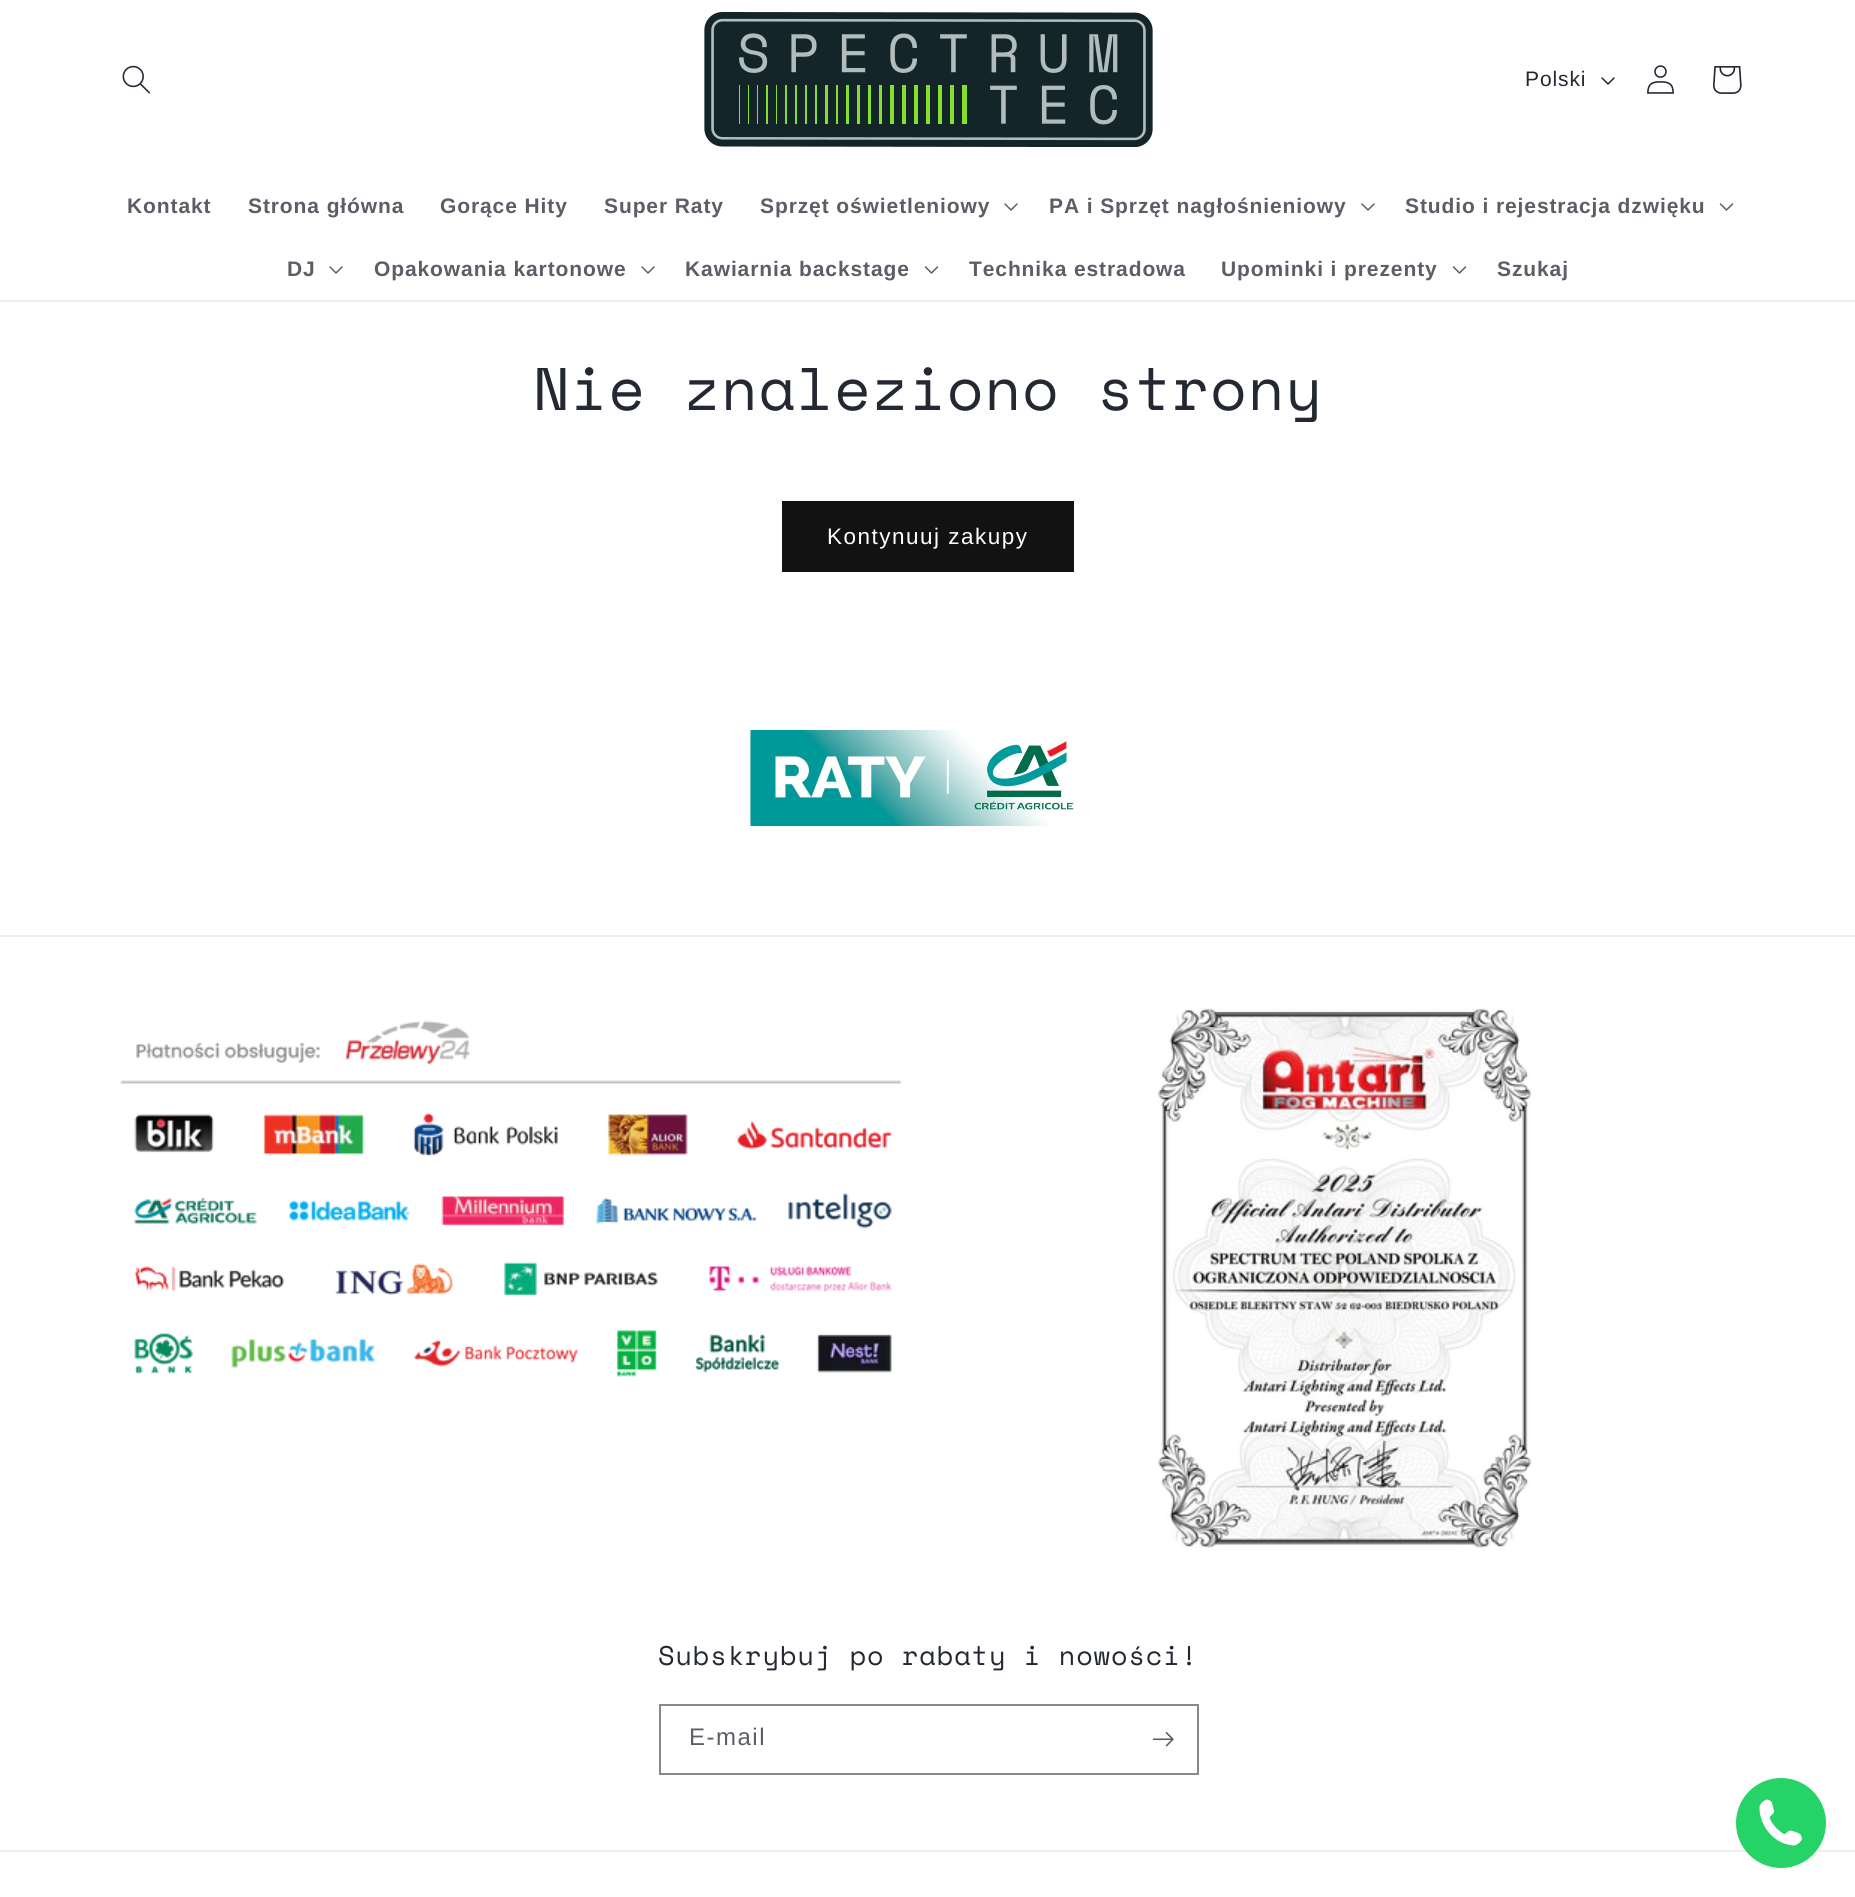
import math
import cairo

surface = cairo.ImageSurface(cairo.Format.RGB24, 1855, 1897)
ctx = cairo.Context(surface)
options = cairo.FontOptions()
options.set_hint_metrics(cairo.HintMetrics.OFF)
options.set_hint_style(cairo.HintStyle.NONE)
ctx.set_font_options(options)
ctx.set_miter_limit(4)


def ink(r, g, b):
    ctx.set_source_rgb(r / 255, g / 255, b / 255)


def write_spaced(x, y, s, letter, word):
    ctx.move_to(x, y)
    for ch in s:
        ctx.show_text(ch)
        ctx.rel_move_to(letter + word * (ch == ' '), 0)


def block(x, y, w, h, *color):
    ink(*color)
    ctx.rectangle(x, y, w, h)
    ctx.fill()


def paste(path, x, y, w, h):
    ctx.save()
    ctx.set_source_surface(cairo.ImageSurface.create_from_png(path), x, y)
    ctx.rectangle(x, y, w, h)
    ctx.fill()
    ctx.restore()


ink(255, 255, 255)
ctx.paint()
block(0, 300, 1855, 2, 237, 238, 239)
paste("pic1.png", 122, 65, 28, 29)
paste("pic2.png", 704, 12, 449, 135)
ctx.select_font_face("Liberation Sans")
ctx.set_font_size(21)
ink(36, 40, 51)
write_spaced(1525, 86, "Polski", 0.9, 0)
paste("pic3.png", 1601, 77, 14, 8)
paste("pic4.png", 1647, 65, 27, 29)
paste("pic5.png", 1713, 66, 29, 28)
ctx.select_font_face("Liberation Sans", cairo.FontSlant.NORMAL, cairo.FontWeight.BOLD)
ink(91, 94, 102)
write_spaced(127, 213, "Kontakt", 0.9, 0)
write_spaced(248, 213, "Strona główna", 0.9, 0)
write_spaced(440, 213, "Gorące Hity", 0.9, 0)
write_spaced(604, 213, "Super Raty", 0.9, 0)
write_spaced(760, 213, "Sprzęt oświetleniowy", 0.9, 0)
paste("pic6.png", 1004, 203, 14, 8)
write_spaced(1049, 213, "PA i Sprzęt nagłośnieniowy", 0.9, 0)
paste("pic6.png", 1361, 203, 14, 8)
write_spaced(1405, 213, "Studio i rejestracja dzwięku", 0.9, 0)
paste("pic7.png", 1719, 203, 15, 8)
write_spaced(287, 276, "DJ", 0.9, 0)
paste("pic6.png", 329, 266, 14, 8)
write_spaced(374, 276, "Opakowania kartonowe", 0.9, 0)
paste("pic6.png", 641, 266, 14, 8)
write_spaced(685, 276, "Kawiarnia backstage", 0.9, 0)
paste("pic7.png", 924, 266, 15, 8)
write_spaced(969, 276, "Technika estradowa", 0.9, 0)
write_spaced(1221, 276, "Upominki i prezenty", 0.9, 0)
paste("pic7.png", 1452, 266, 15, 8)
write_spaced(1497, 276, "Szukaj", 0.9, 0)
ctx.select_font_face("Space Mono")
ctx.set_font_size(60)
ink(36, 40, 51)
write_spaced(533, 410, "Nie znaleziono strony", 0.9, 0)
block(782, 501, 292, 71, 18, 18, 18)
ctx.select_font_face("Liberation Sans")
ctx.set_font_size(22.5)
ink(255, 255, 255)
write_spaced(827, 544, "Kontynuuj zakupy", 1.5, 0)
paste("pic8.png", 750, 730, 325, 96)
block(0, 935, 1855, 2, 237, 238, 239)
paste("pic9.png", 120, 1020, 782, 357)
paste("pic10.png", 1157, 1008, 375, 540)
ctx.select_font_face("Space Mono")
ctx.set_font_size(27)
ink(36, 40, 51)
write_spaced(658, 1665, "Subskrybuj po rabaty i nowości!", 0.9, 0)
ctx.rectangle(660, 1705, 538, 69)
ink(135, 137, 143)
ctx.stroke()
ctx.select_font_face("Liberation Sans")
ctx.set_font_size(24)
ink(91, 94, 102)
write_spaced(689, 1745, "E-mail", 1.5, 0)
paste("pic11.png", 1152, 1732, 22, 15)
block(0, 1850, 1855, 2, 237, 238, 239)
ink(37, 211, 102)
ctx.arc(1781, 1823, 45, 0, 2 * math.pi)
ctx.fill()
paste("pic12.png", 1759, 1799, 43, 47)
surface.write_to_png("screenshot.png")
